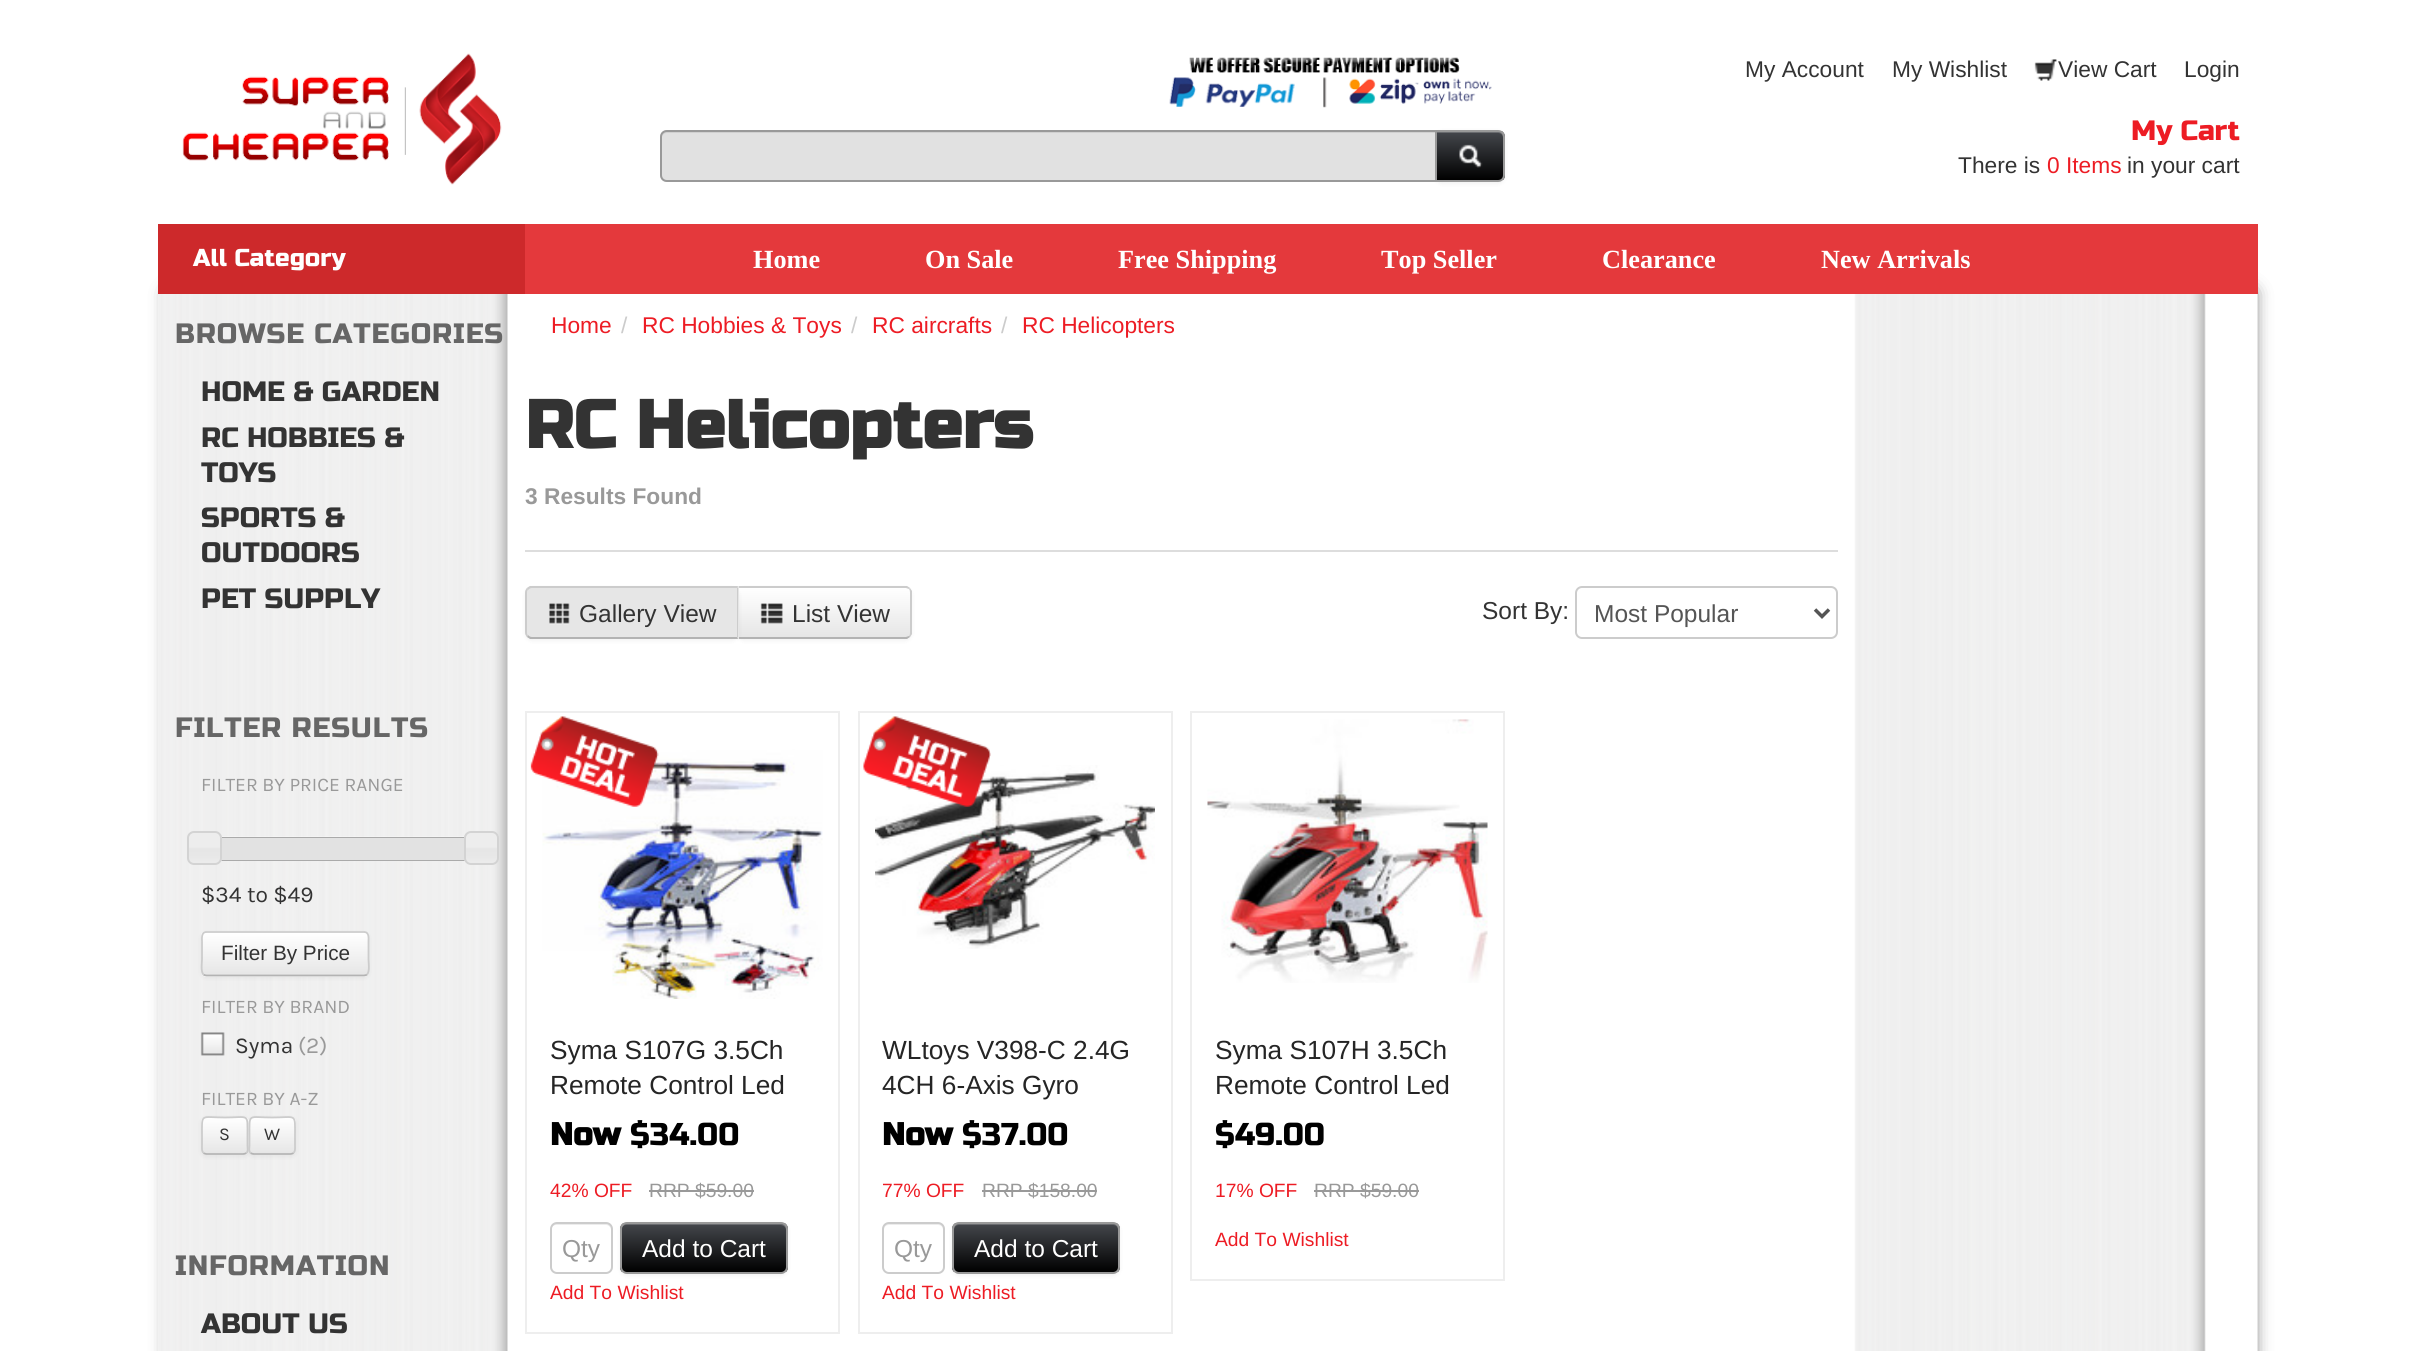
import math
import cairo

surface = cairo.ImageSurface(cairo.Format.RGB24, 2414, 1351)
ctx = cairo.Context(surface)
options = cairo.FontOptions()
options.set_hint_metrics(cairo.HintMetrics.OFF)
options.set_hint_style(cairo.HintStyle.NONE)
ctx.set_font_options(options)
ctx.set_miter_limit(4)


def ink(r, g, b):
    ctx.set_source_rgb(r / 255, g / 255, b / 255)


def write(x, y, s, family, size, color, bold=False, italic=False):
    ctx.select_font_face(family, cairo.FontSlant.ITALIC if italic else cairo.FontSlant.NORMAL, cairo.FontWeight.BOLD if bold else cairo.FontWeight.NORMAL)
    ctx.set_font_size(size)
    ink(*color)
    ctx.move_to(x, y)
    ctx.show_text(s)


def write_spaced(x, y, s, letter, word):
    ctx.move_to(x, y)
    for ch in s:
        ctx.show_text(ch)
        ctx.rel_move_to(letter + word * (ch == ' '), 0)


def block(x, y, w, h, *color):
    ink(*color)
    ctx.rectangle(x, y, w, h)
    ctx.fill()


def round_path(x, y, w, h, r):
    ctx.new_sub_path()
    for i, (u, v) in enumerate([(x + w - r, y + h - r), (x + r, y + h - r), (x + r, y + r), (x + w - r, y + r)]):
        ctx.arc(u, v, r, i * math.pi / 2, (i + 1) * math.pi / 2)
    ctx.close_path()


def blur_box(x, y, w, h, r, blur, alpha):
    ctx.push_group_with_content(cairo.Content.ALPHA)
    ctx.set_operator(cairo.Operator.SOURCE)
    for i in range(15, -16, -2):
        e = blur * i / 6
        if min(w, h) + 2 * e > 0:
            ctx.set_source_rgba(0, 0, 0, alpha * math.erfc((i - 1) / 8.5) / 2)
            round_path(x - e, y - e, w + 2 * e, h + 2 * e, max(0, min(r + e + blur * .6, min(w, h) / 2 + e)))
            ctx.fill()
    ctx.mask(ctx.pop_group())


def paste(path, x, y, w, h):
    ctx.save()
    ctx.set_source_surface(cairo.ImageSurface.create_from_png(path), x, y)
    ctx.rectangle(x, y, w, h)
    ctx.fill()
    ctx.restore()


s1 = dict(family="Liberation Sans", size=22.75, color=(51, 51, 51))
s2 = dict(family="Russo One", size=28, color=(237, 28, 36))
s3 = dict(family="Liberation Sans", size=22.75, color=(237, 28, 36))
s4 = dict(family="Russo One", size=24.5, color=(255, 255, 255))
s5 = dict(family="Liberation Serif", size=26.25, color=(255, 255, 255), bold=True)
s6 = dict(family="Russo One", size=28, color=(51, 51, 51))
s7 = dict(family="Karla", size=19.25, color=(153, 153, 153))
s8 = dict(family="Karla", size=22.75, color=(51, 51, 51))
s9 = dict(family="Liberation Sans", size=20.75, color=(51, 51, 51))
s10 = dict(family="Karla", size=22.75, color=(153, 153, 153))
s11 = dict(family="Karla", size=18, color=(51, 51, 51))
s12 = dict(family="Liberation Sans", size=22.75, color=(204, 204, 204))
s13 = dict(family="Russo One", size=67.5, color=(51, 51, 51), bold=True)
s14 = dict(family="Liberation Sans", size=22.75, color=(153, 153, 153), bold=True)
s15 = dict(family="Liberation Sans", size=24.5, color=(51, 51, 51))
s16 = dict(family="Liberation Sans", size=24.5, color=(85, 85, 85))
s17 = dict(family="Liberation Sans", size=26.25, color=(37, 37, 37))
s18 = dict(family="Russo One", size=31.5, color=(0, 0, 0), bold=True)
s19 = dict(family="Russo One", size=31.5, color=(0, 0, 0))
s20 = dict(family="Liberation Sans", size=19.25, color=(237, 28, 36))
s21 = dict(family="Liberation Sans", size=19.25, color=(153, 153, 153))
s22 = dict(family="Liberation Sans", size=24.5, color=(153, 153, 153))
s23 = dict(family="Liberation Sans", size=24.5, color=(255, 255, 255))

ink(255, 255, 255)
ctx.paint()
paste("pic1.png", 182, 53, 320, 132)
paste("pic2.png", 1169, 57, 323, 51)
ink(0, 0, 0)
blur_box(1435, 131, 70, 53, 7, 2, 0.05)
ctx.save()
ctx.new_path()
ctx.move_to(1435, 130)
ctx.line_to(1498, 130)
ctx.curve_to(1502, 130, 1505, 133, 1505, 137)
ctx.line_to(1505, 175)
ctx.curve_to(1505, 179, 1502, 182, 1498, 182)
ctx.line_to(1435, 182)
ctx.close_path()
ctx.clip()
gradient = cairo.LinearGradient(1470, 131, 1470, 180)
gradient.add_color_stop_rgba(0, 0.271, 0.282, 0.302, 1)
gradient.add_color_stop_rgba(1, 0, 0, 0, 1)
ctx.set_source(gradient)
ctx.rectangle(1437, 131, 68, 49)
ctx.fill()
ctx.restore()
ctx.set_source_rgba(1, 1, 1, 0.2)
ctx.new_path()
ctx.move_to(1437, 133)
ctx.line_to(1498, 133)
ctx.curve_to(1501, 133, 1503, 135, 1503, 138)
ctx.line_to(1503, 136)
ctx.curve_to(1503, 133, 1501, 131, 1498, 131)
ctx.line_to(1437, 131)
ctx.close_path()
ctx.fill()
ctx.new_path()
ctx.move_to(1436, 131)
ctx.line_to(1498, 131)
ctx.curve_to(1501.5, 131, 1504, 133.5, 1504, 137)
ctx.line_to(1504, 175)
ctx.curve_to(1504, 178.5, 1501.5, 181, 1498, 181)
ctx.line_to(1436, 181)
ctx.close_path()
ink(153, 153, 153)
ctx.stroke()
ink(225, 225, 225)
ctx.new_path()
ctx.move_to(667, 130)
ctx.line_to(1437, 130)
ctx.line_to(1437, 182)
ctx.line_to(667, 182)
ctx.curve_to(663, 182, 660, 179, 660, 175)
ctx.line_to(660, 137)
ctx.curve_to(660, 133, 663, 130, 667, 130)
ctx.close_path()
ctx.fill()
ink(208, 208, 208)
ctx.new_path()
ctx.move_to(667, 133)
ctx.line_to(1435, 133)
ctx.line_to(1435, 131)
ctx.line_to(667, 131)
ctx.curve_to(663, 131, 662, 135, 662, 138)
ctx.curve_to(662, 135, 664, 133, 667, 133)
ctx.close_path()
ctx.fill()
ctx.new_path()
ctx.move_to(667, 131)
ctx.line_to(1436, 131)
ctx.line_to(1436, 181)
ctx.line_to(667, 181)
ctx.curve_to(663.5, 181, 661, 178.5, 661, 175)
ctx.line_to(661, 137)
ctx.curve_to(661, 133.5, 663.5, 131, 667, 131)
ctx.close_path()
ink(153, 153, 153)
ctx.stroke()
paste("pic3.png", 1459, 144, 24, 24)
write(1745, 77, "My Account", **s1)
write(1892, 77, "My Wishlist", **s1)
paste("pic4.png", 2034, 59, 23, 22)
write(2058, 77, "View Cart", **s1)
write(2184, 77, "Login", **s1)
write(2131, 140, "My Cart", **s2)
write(1958, 173, "There is", **s1)
write(2047, 173, "0 Items", **s3)
write(2127, 173, "in your cart", **s1)
ink(51, 51, 51)
blur_box(170, 292, 2082, 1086, 0, 9, 1)
block(525, 224, 1733, 70, 228, 57, 60)
block(158, 224, 367, 70, 205, 41, 43)
write(193, 266, "All Category", **s4)
write(753, 268, "Home", **s5)
write(925, 268, "On Sale", **s5)
write(1118, 268, "Free Shipping", **s5)
write(1381, 268, "Top Seller", **s5)
write(1602, 268, "Clearance", **s5)
write(1821, 268, "New Arrivals", **s5)
paste("pic5.png", 158, 294, 2100, 1057)
ctx.select_font_face("Russo One")
ctx.set_font_size(28)
ink(102, 102, 102)
write_spaced(175, 343, "BROWSE CATEGORIES", 0.9, 0)
write(201, 401, "HOME & GARDEN", **s6)
write(201, 447, "RC HOBBIES &", **s6)
write(201, 482, "TOYS", **s6)
write(201, 527, "SPORTS &", **s6)
write(201, 562, "OUTDOORS", **s6)
write(201, 608, "PET SUPPLY", **s6)
ink(102, 102, 102)
write_spaced(175, 737, "FILTER RESULTS", 0.9, 0)
write(201, 791, "FILTER BY PRICE RANGE", **s7)
paste("pic6.png", 222, 836, 242, 1)
ctx.rectangle(202, 838, 278, 22)
ink(170, 170, 170)
ctx.stroke()
block(221, 838, 244, 22, 226, 226, 226)
paste("pic7.png", 188, 832, 34, 32)
round_path(188, 832, 33, 32, 6)
ink(211, 211, 211)
ctx.stroke()
paste("pic8.png", 464, 832, 35, 32)
round_path(465, 832, 33, 32, 6)
ctx.stroke()
write(201, 902, "$34 to $49", **s8)
ink(0, 0, 0)
blur_box(201, 933, 168, 45, 5, 2, 0.05)
ink(245, 245, 245)
round_path(201, 931, 168, 46, 5)
ctx.fill()
ctx.save()
round_path(201, 931, 168, 46, 5)
ctx.clip()
gradient = cairo.LinearGradient(285, 933, 285, 975)
gradient.add_color_stop_rgba(0, 1, 1, 1, 1)
gradient.add_color_stop_rgba(1, 0.902, 0.902, 0.902, 1)
ctx.set_source(gradient)
ctx.rectangle(201, 933, 168, 42)
ctx.fill()
ctx.restore()
ctx.new_path()
ctx.move_to(367, 974.5)
ctx.curve_to(366.5, 975, 365, 975.5, 364, 975.5)
ctx.line_to(206.5, 975.5)
ctx.curve_to(205.5, 975.5, 204, 975, 203.5, 974.5)
ink(179, 179, 179)
ctx.set_line_width(1.8)
ctx.stroke()
ctx.new_path()
ctx.move_to(203.5, 974.5)
ctx.curve_to(200.5, 971.5, 202, 962.5, 202, 959.5)
ctx.line_to(202, 942)
ctx.curve_to(202, 938.5, 201, 932, 206.5, 932)
ctx.line_to(364, 932)
ctx.curve_to(369.5, 932, 368.5, 938.5, 368.5, 942)
ctx.line_to(368.5, 959.5)
ctx.curve_to(368.5, 962.5, 370, 971.5, 367, 974.5)
ink(204, 204, 204)
ctx.stroke()
write(221, 960, "Filter By Price", **s9)
write(201, 1013, "FILTER BY BRAND", **s7)
paste("pic9.png", 200, 1032, 25, 24)
write(235, 1053, "Syma", **s8)
write(298, 1053, "(2)", **s10)
write(201, 1105, "FILTER BY A-Z", **s7)
ink(0, 0, 0)
blur_box(201, 1118, 48, 39, 5, 2, 0.05)
ink(245, 245, 245)
round_path(201, 1117, 48, 38, 5)
ctx.fill()
ctx.save()
round_path(201, 1117, 48, 38, 5)
ctx.clip()
gradient = cairo.LinearGradient(225, 1118, 225, 1153)
gradient.add_color_stop_rgba(0, 1, 1, 1, 1)
gradient.add_color_stop_rgba(1, 0.902, 0.902, 0.902, 1)
ctx.set_source(gradient)
ctx.rectangle(201, 1118, 48, 35)
ctx.fill()
ctx.restore()
ctx.new_path()
ctx.move_to(246.5, 1153)
ctx.curve_to(245.5, 1153.5, 244.5, 1154, 243, 1154)
ctx.line_to(206.5, 1154)
ctx.curve_to(205.5, 1154, 204, 1153.5, 203.5, 1153)
ink(179, 179, 179)
ctx.stroke()
ctx.new_path()
ctx.move_to(203.5, 1153)
ctx.curve_to(201.5, 1151, 202, 1147.5, 202, 1145)
ctx.line_to(202, 1136)
ctx.curve_to(202, 1112.5, 200, 1117.5, 225, 1117.5)
ctx.curve_to(249.5, 1117.5, 247.5, 1112.5, 247.5, 1136)
ctx.line_to(247.5, 1145)
ctx.curve_to(247.5, 1147.5, 248.5, 1151, 246.5, 1153)
ink(204, 204, 204)
ctx.stroke()
write(219, 1140, "S", **s11)
ink(0, 0, 0)
blur_box(249, 1118, 47, 39, 5, 2, 0.05)
ink(245, 245, 245)
round_path(249, 1117, 47, 38, 5)
ctx.fill()
ctx.save()
round_path(249, 1117, 47, 38, 5)
ctx.clip()
gradient = cairo.LinearGradient(272, 1118, 272, 1153)
gradient.add_color_stop_rgba(0, 1, 1, 1, 1)
gradient.add_color_stop_rgba(1, 0.902, 0.902, 0.902, 1)
ctx.set_source(gradient)
ctx.rectangle(249, 1118, 47, 35)
ctx.fill()
ctx.restore()
ctx.new_path()
ctx.move_to(293.5, 1153)
ctx.curve_to(293, 1153.5, 291.5, 1154, 290.5, 1154)
ctx.line_to(254, 1154)
ctx.curve_to(252.5, 1154, 251.5, 1153.5, 250.5, 1153)
ink(179, 179, 179)
ctx.stroke()
ctx.new_path()
ctx.move_to(250.5, 1153)
ctx.curve_to(248.5, 1151, 249.5, 1147.5, 249.5, 1145)
ctx.line_to(249.5, 1136)
ctx.curve_to(249.5, 1112.5, 247.5, 1117.5, 272, 1117.5)
ctx.curve_to(297, 1117.5, 295, 1112.5, 295, 1136)
ctx.line_to(295, 1145)
ctx.curve_to(295, 1147.5, 295.5, 1151, 293.5, 1153)
ink(204, 204, 204)
ctx.stroke()
write(264, 1140, "W", **s11)
ctx.select_font_face("Russo One")
ctx.set_font_size(28)
ink(102, 102, 102)
write_spaced(175, 1275, "INFORMATION", 0.9, 0)
write(201, 1333, "ABOUT US", **s6)
write(551, 333, "Home", **s3)
write(621, 333, "/", **s12)
write(642, 333, "RC Hobbies & Toys", **s3)
write(851, 333, "/", **s12)
write(872, 333, "RC aircrafts", **s3)
write(1001, 333, "/", **s12)
write(1022, 333, "RC Helicopters", **s3)
write(525, 448, "RC Helicopters", **s13)
write(525, 504, "3 Results Found", **s14)
block(525, 550, 1313, 2, 221, 221, 221)
ink(0, 0, 0)
blur_box(737, 588, 175, 53, 7, 2, 0.05)
ctx.save()
ctx.new_path()
ctx.move_to(737, 586)
ctx.line_to(905, 586)
ctx.curve_to(909, 586, 912, 589, 912, 593)
ctx.line_to(912, 632)
ctx.curve_to(912, 636, 909, 639, 905, 639)
ctx.line_to(737, 639)
ctx.close_path()
ctx.clip()
gradient = cairo.LinearGradient(824, 588, 824, 637)
gradient.add_color_stop_rgba(0, 1, 1, 1, 1)
gradient.add_color_stop_rgba(1, 0.902, 0.902, 0.902, 1)
ctx.set_source(gradient)
ctx.rectangle(739, 588, 173, 49)
ctx.fill()
ctx.restore()
ink(204, 204, 204)
ctx.new_path()
ctx.move_to(737, 586)
ctx.line_to(907, 586)
ctx.line_to(910, 588)
ctx.line_to(909, 589)
ctx.line_to(906, 588)
ctx.line_to(738, 588)
ctx.close_path()
ctx.fill()
ctx.new_path()
ctx.move_to(912, 634)
ctx.line_to(910, 637)
ctx.line_to(909, 636)
ctx.curve_to(910, 635, 910, 634, 910, 632)
ctx.line_to(910, 593)
ctx.curve_to(910, 592, 910, 590, 909, 589)
ctx.line_to(910, 588)
ctx.line_to(912, 591)
ctx.close_path()
ctx.fill()
ink(179, 179, 179)
ctx.new_path()
ctx.move_to(737, 639)
ctx.line_to(738, 637)
ctx.line_to(906, 637)
ctx.line_to(909, 636)
ctx.line_to(910, 637)
ctx.line_to(907, 639)
ctx.close_path()
ctx.fill()
ink(0, 0, 0)
blur_box(525, 588, 214, 53, 7, 2, 0.05)
ink(230, 230, 230)
ctx.new_path()
ctx.move_to(532, 586)
ctx.line_to(739, 586)
ctx.line_to(739, 639)
ctx.line_to(532, 639)
ctx.curve_to(528, 639, 525, 636, 525, 632)
ctx.line_to(525, 593)
ctx.curve_to(525, 589, 528, 586, 532, 586)
ctx.close_path()
ctx.fill()
ink(204, 204, 204)
ctx.new_path()
ctx.move_to(532, 588)
ctx.curve_to(530, 588, 529, 589, 528, 590)
ctx.line_to(527, 588)
ctx.line_to(530, 586)
ctx.line_to(738, 586)
ctx.line_to(737, 588)
ctx.close_path()
ctx.fill()
ctx.new_path()
ctx.move_to(738, 587)
ctx.line_to(738, 638)
ctx.line_to(737, 637)
ctx.line_to(737, 588)
ctx.close_path()
ctx.fill()
ink(179, 179, 179)
ctx.new_path()
ctx.move_to(530, 639)
ctx.line_to(527, 637)
ctx.line_to(528, 635)
ctx.curve_to(529, 636, 530, 637, 532, 637)
ctx.line_to(737, 637)
ctx.line_to(738, 639)
ctx.close_path()
ctx.fill()
ink(204, 204, 204)
ctx.new_path()
ctx.move_to(525, 593)
ctx.line_to(525, 632)
ctx.curve_to(525, 634, 526, 636, 527, 637)
ctx.line_to(528, 635)
ctx.curve_to(527, 635, 527, 633, 527, 632)
ctx.line_to(527, 593)
ctx.curve_to(527, 592, 527, 590, 528, 590)
ctx.line_to(527, 588)
ctx.curve_to(526, 589, 525, 591, 525, 593)
ctx.close_path()
ctx.fill()
paste("pic10.png", 549, 603, 21, 22)
write(579, 622, "Gallery View", **s15)
paste("pic11.png", 760, 603, 23, 21)
write(792, 622, "List View", **s15)
write(1482, 619, "Sort By:", **s15)
round_path(1576, 587, 261, 51, 6)
ink(204, 204, 204)
ctx.set_line_width(2)
ctx.stroke()
ctx.new_path()
ctx.move_to(1815, 609.5)
ctx.line_to(1822, 616.5)
ctx.line_to(1829, 609.5)
ink(85, 85, 85)
ctx.set_line_width(3.5)
ctx.stroke()
write(1594, 622, "Most Popular", **s16)
ctx.rectangle(526, 712, 313, 621)
ink(238, 238, 238)
ctx.set_line_width(2)
ctx.stroke()
paste("pic12.png", 542, 749, 281, 250)
paste("pic13.png", 530, 716, 129, 91)
write(550, 1059, "Syma S107G 3.5Ch", **s17)
write(550, 1094, "Remote Control Led", **s17)
write(550, 1145, "Now", **s18)
write(630, 1145, "$34.00", **s19)
write(550, 1197, "42% OFF", **s20)
write(649, 1197, "RRP $59.00", **s21)
block(649, 1190, 105, 2, 153, 153, 153)
ink(236, 236, 236)
ctx.new_path()
ctx.move_to(556, 1225)
ctx.line_to(606, 1225)
ctx.curve_to(608, 1225, 611, 1227, 611, 1230)
ctx.curve_to(611, 1221, 605, 1223, 598, 1223)
ctx.line_to(564, 1223)
ctx.curve_to(557, 1223, 551, 1221, 551, 1230)
ctx.curve_to(551, 1227, 554, 1225, 556, 1225)
ctx.close_path()
ctx.fill()
round_path(551, 1223, 61, 50, 6)
ink(204, 204, 204)
ctx.stroke()
write(562, 1257, "Qty", **s22)
ink(0, 0, 0)
blur_box(620, 1223, 168, 53, 7, 2, 0.05)
ctx.save()
round_path(620, 1222, 168, 52, 7)
ctx.clip()
gradient = cairo.LinearGradient(704, 1223, 704, 1272)
gradient.add_color_stop_rgba(0, 0.271, 0.282, 0.302, 1)
gradient.add_color_stop_rgba(1, 0, 0, 0, 1)
ctx.set_source(gradient)
ctx.rectangle(620, 1223, 168, 49)
ctx.fill()
ctx.restore()
ctx.set_source_rgba(1, 1, 1, 0.2)
ctx.new_path()
ctx.move_to(626, 1225)
ctx.line_to(780, 1225)
ctx.curve_to(783, 1225, 786, 1227, 786, 1230)
ctx.line_to(786, 1228)
ctx.curve_to(786, 1225, 784, 1223, 781, 1223)
ctx.line_to(626, 1223)
ctx.curve_to(623, 1223, 621, 1225, 621, 1228)
ctx.line_to(621, 1230)
ctx.curve_to(621, 1227, 624, 1225, 626, 1225)
ctx.close_path()
ctx.fill()
round_path(621, 1223, 166, 50, 6)
ink(153, 153, 153)
ctx.stroke()
write(642, 1257, "Add to Cart", **s23)
write(550, 1299, "Add To Wishlist", **s20)
ctx.rectangle(859, 712, 313, 621)
ink(238, 238, 238)
ctx.stroke()
paste("pic14.png", 875, 765, 280, 184)
paste("pic15.png", 863, 716, 128, 91)
write(882, 1059, "WLtoys V398-C 2.4G", **s17)
write(882, 1094, "4CH 6-Axis Gyro", **s17)
write(882, 1145, "Now", **s18)
write(962, 1145, "$37.00", **s19)
write(882, 1197, "77% OFF", **s20)
write(982, 1197, "RRP $158.00", **s21)
block(982, 1190, 115, 2, 153, 153, 153)
ink(236, 236, 236)
ctx.new_path()
ctx.move_to(889, 1225)
ctx.line_to(938, 1225)
ctx.curve_to(941, 1225, 943, 1227, 943, 1230)
ctx.curve_to(943, 1221, 937, 1223, 930, 1223)
ctx.line_to(897, 1223)
ctx.curve_to(890, 1223, 884, 1221, 884, 1230)
ctx.curve_to(884, 1227, 886, 1225, 889, 1225)
ctx.close_path()
ctx.fill()
round_path(883, 1223, 61, 50, 6)
ink(204, 204, 204)
ctx.stroke()
write(894, 1257, "Qty", **s22)
ink(0, 0, 0)
blur_box(952, 1223, 168, 53, 7, 2, 0.05)
ctx.save()
round_path(952, 1222, 168, 52, 7)
ctx.clip()
gradient = cairo.LinearGradient(1036, 1223, 1036, 1272)
gradient.add_color_stop_rgba(0, 0.271, 0.282, 0.302, 1)
gradient.add_color_stop_rgba(1, 0, 0, 0, 1)
ctx.set_source(gradient)
ctx.rectangle(952, 1223, 168, 49)
ctx.fill()
ctx.restore()
ctx.set_source_rgba(1, 1, 1, 0.2)
ctx.new_path()
ctx.move_to(959, 1225)
ctx.line_to(1113, 1225)
ctx.curve_to(1116, 1225, 1118, 1227, 1118, 1230)
ctx.line_to(1118, 1228)
ctx.curve_to(1118, 1225, 1116, 1223, 1113, 1223)
ctx.line_to(959, 1223)
ctx.curve_to(956, 1223, 954, 1225, 954, 1228)
ctx.line_to(954, 1230)
ctx.curve_to(954, 1227, 956, 1225, 959, 1225)
ctx.close_path()
ctx.fill()
round_path(953, 1223, 166, 50, 6)
ink(153, 153, 153)
ctx.stroke()
write(974, 1257, "Add to Cart", **s23)
write(882, 1299, "Add To Wishlist", **s20)
ctx.rectangle(1191, 712, 313, 568)
ink(238, 238, 238)
ctx.stroke()
paste("pic16.png", 1207, 719, 281, 264)
write(1215, 1059, "Syma S107H 3.5Ch", **s17)
write(1215, 1094, "Remote Control Led", **s17)
write(1215, 1145, "$49.00", **s19)
write(1215, 1197, "17% OFF", **s20)
write(1314, 1197, "RRP $59.00", **s21)
block(1314, 1190, 105, 2, 153, 153, 153)
write(1215, 1246, "Add To Wishlist", **s20)
surface.write_to_png("screenshot.png")
